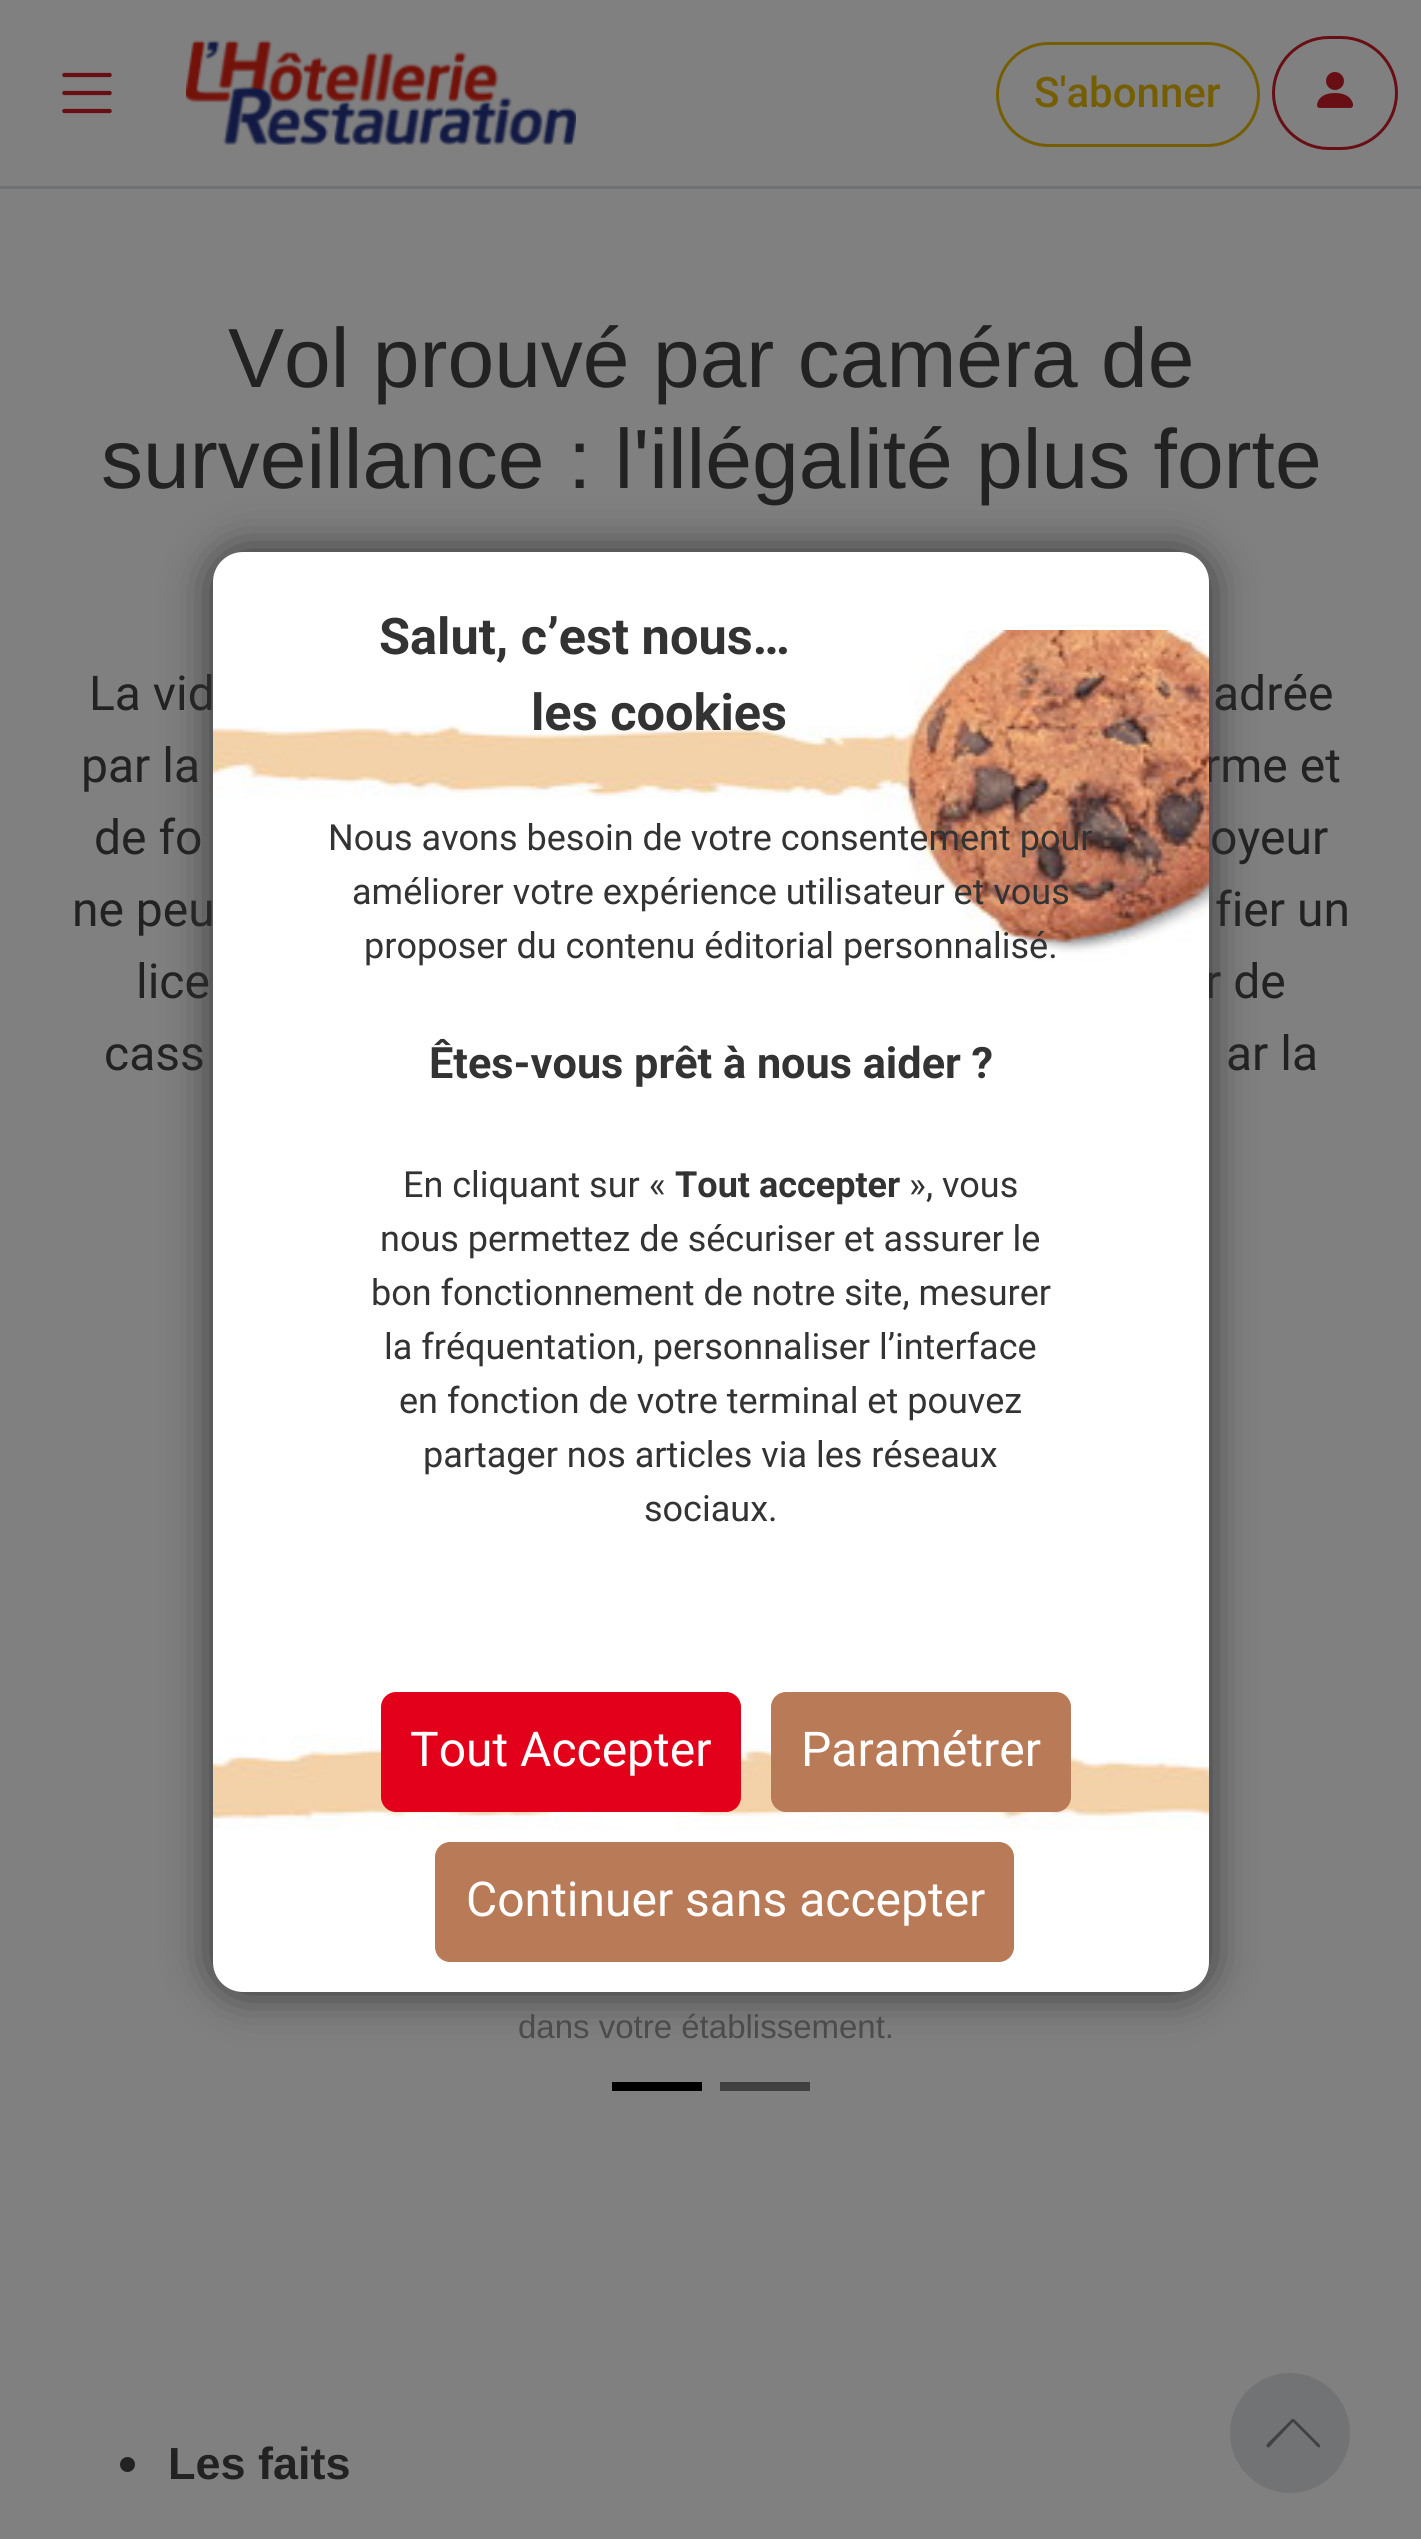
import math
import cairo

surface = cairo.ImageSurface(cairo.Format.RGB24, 1421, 2539)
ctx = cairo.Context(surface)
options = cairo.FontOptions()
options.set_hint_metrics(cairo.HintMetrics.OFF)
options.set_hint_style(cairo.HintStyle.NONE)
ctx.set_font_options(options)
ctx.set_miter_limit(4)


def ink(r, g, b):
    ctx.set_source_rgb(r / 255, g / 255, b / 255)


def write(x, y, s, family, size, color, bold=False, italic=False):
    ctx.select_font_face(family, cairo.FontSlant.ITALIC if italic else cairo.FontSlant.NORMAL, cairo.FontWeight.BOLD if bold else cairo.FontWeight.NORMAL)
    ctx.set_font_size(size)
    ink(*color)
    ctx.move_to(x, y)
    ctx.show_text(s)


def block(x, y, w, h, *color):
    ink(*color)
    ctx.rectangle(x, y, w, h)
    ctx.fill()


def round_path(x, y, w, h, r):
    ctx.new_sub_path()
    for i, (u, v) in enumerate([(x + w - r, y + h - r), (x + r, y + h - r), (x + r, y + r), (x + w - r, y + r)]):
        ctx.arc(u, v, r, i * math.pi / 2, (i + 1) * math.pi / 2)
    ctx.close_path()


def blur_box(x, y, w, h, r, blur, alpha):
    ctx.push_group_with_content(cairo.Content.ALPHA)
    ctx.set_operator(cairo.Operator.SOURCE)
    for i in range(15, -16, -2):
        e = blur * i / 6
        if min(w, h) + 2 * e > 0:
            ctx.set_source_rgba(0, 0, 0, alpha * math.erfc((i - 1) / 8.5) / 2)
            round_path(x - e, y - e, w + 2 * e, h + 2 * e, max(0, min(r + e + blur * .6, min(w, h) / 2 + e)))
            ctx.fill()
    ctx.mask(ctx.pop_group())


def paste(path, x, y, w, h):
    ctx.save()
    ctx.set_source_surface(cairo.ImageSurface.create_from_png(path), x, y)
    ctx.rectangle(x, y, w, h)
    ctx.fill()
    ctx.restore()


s1 = dict(family="Roboto Medium", size=42, color=(117, 94, 1))
s2 = dict(family="Liberation Sans", size=84, color=(34, 34, 34))
s3 = dict(family="Roboto", size=48, color=(34, 34, 34))
s4 = dict(family="Liberation Sans", size=33, color=(77, 77, 77))
s5 = dict(family="Liberation Sans", size=45, color=(34, 34, 34), bold=True)
s6 = dict(family="Roboto", size=50.5, color=(51, 51, 51), bold=True)
s7 = dict(family="Roboto", size=36, color=(51, 51, 51))
s8 = dict(family="Roboto", size=43.25, color=(51, 51, 51), bold=True)
s9 = dict(family="Roboto", size=36, color=(51, 51, 51), bold=True)
s10 = dict(family="Roboto", size=48, color=(255, 255, 255))

ink(128, 128, 128)
ctx.paint()
paste("pic1.png", 62, 72, 50, 42)
paste("pic2.png", 186, 40, 390, 105)
round_path(997.5, 43.5, 261, 102, 51)
ink(117, 94, 1)
ctx.set_line_width(3)
ctx.stroke()
write(1034, 107, "S'abonner", **s1)
round_path(1273.5, 37.5, 123, 111, 55.5)
ink(103, 15, 20)
ctx.stroke()
paste("pic3.png", 1317, 72, 37, 36)
block(0, 186, 1421, 3, 111, 113, 115)
write(228, 387, "Vol prouvé par caméra de", **s2)
write(101, 488, "surveillance : l'illégalité plus forte", **s2)
write(89, 710, "La vid", **s3)
write(1213, 710, "adrée", **s3)
write(81, 782, "par la", **s3)
write(1204, 782, "rme et", **s3)
write(94, 854, "de fo", **s3)
write(1210, 854, "oyeur", **s3)
write(72, 926, "ne peu", **s3)
write(1215, 926, "fier un", **s3)
write(136, 998, "lice", **s3)
write(1205, 998, "r de", **s3)
write(104, 1070, "cass", **s3)
write(1226, 1070, "ar la", **s3)
write(518, 2038, "dans votre établissement.", **s4)
block(612, 2082, 90, 9, 0, 0, 0)
block(720, 2082, 90, 9, 64, 64, 64)
ink(34, 34, 34)
ctx.new_path()
ctx.arc(127.5, 2464.5, 7.5, 0, 2 * math.pi)
ctx.fill()
write(168, 2479, "Les faits", **s5)
ink(113, 115, 117)
ctx.new_path()
ctx.move_to(1230, 2433)
ctx.curve_to(1230, 2400, 1257, 2373, 1290, 2373)
ctx.curve_to(1323, 2373, 1350, 2400, 1350, 2433)
ctx.curve_to(1350, 2466, 1323, 2493, 1290, 2493)
ctx.curve_to(1257, 2493, 1230, 2466, 1230, 2433)
ctx.close_path()
ctx.fill()
ink(64, 66, 70)
ctx.new_path()
ctx.move_to(1292, 2419)
ctx.line_to(1271, 2440)
ctx.curve_to(1269, 2442, 1265, 2445, 1267, 2447)
ctx.curve_to(1269, 2449, 1271, 2445, 1273, 2443)
ctx.line_to(1293, 2422)
ctx.line_to(1314, 2443)
ctx.curve_to(1314, 2443, 1318, 2449, 1320, 2447)
ctx.line_to(1320, 2445)
ctx.line_to(1294, 2419)
ctx.close_path()
ctx.fill()
ink(51, 51, 51)
blur_box(213, 552, 996, 1440, 30, 22.5, 1)
ink(255, 255, 255)
round_path(213, 552, 996, 1440, 30)
ctx.fill()
paste("pic4.png", 213, 630, 996, 1200)
write(379, 654, "Salut, c’est nous…", **s6)
write(531, 730, "les cookies", **s6)
write(328, 850, "Nous avons besoin de votre consentement pour", **s7)
write(352, 904, "améliorer votre expérience utilisateur et vous", **s7)
write(364, 958, "proposer du contenu éditorial personnalisé.", **s7)
write(429, 1078, "Êtes-vous prêt à nous aider ?", **s8)
write(403, 1197, "En cliquant sur «", **s7)
write(675, 1197, "Tout accepter", **s9)
write(909, 1197, "», vous", **s7)
write(380, 1251, "nous permettez de sécuriser et assurer le", **s7)
write(371, 1305, "bon fonctionnement de notre site, mesurer", **s7)
write(384, 1359, "la fréquentation, personnaliser l’interface", **s7)
write(399, 1413, "en fonction de votre terminal et pouvez", **s7)
write(423, 1467, "partager nos articles via les réseaux", **s7)
write(644, 1521, "sociaux.", **s7)
ink(227, 0, 26)
round_path(381, 1692, 360, 120, 15)
ctx.fill()
write(410, 1766, "Tout Accepter", **s10)
ink(185, 122, 87)
round_path(771, 1692, 300, 120, 15)
ctx.fill()
write(801, 1766, "Paramétrer", **s10)
ink(185, 122, 87)
round_path(435, 1842, 579, 120, 15)
ctx.fill()
write(466, 1916, "Continuer sans accepter", **s10)
surface.write_to_png("screenshot.png")
